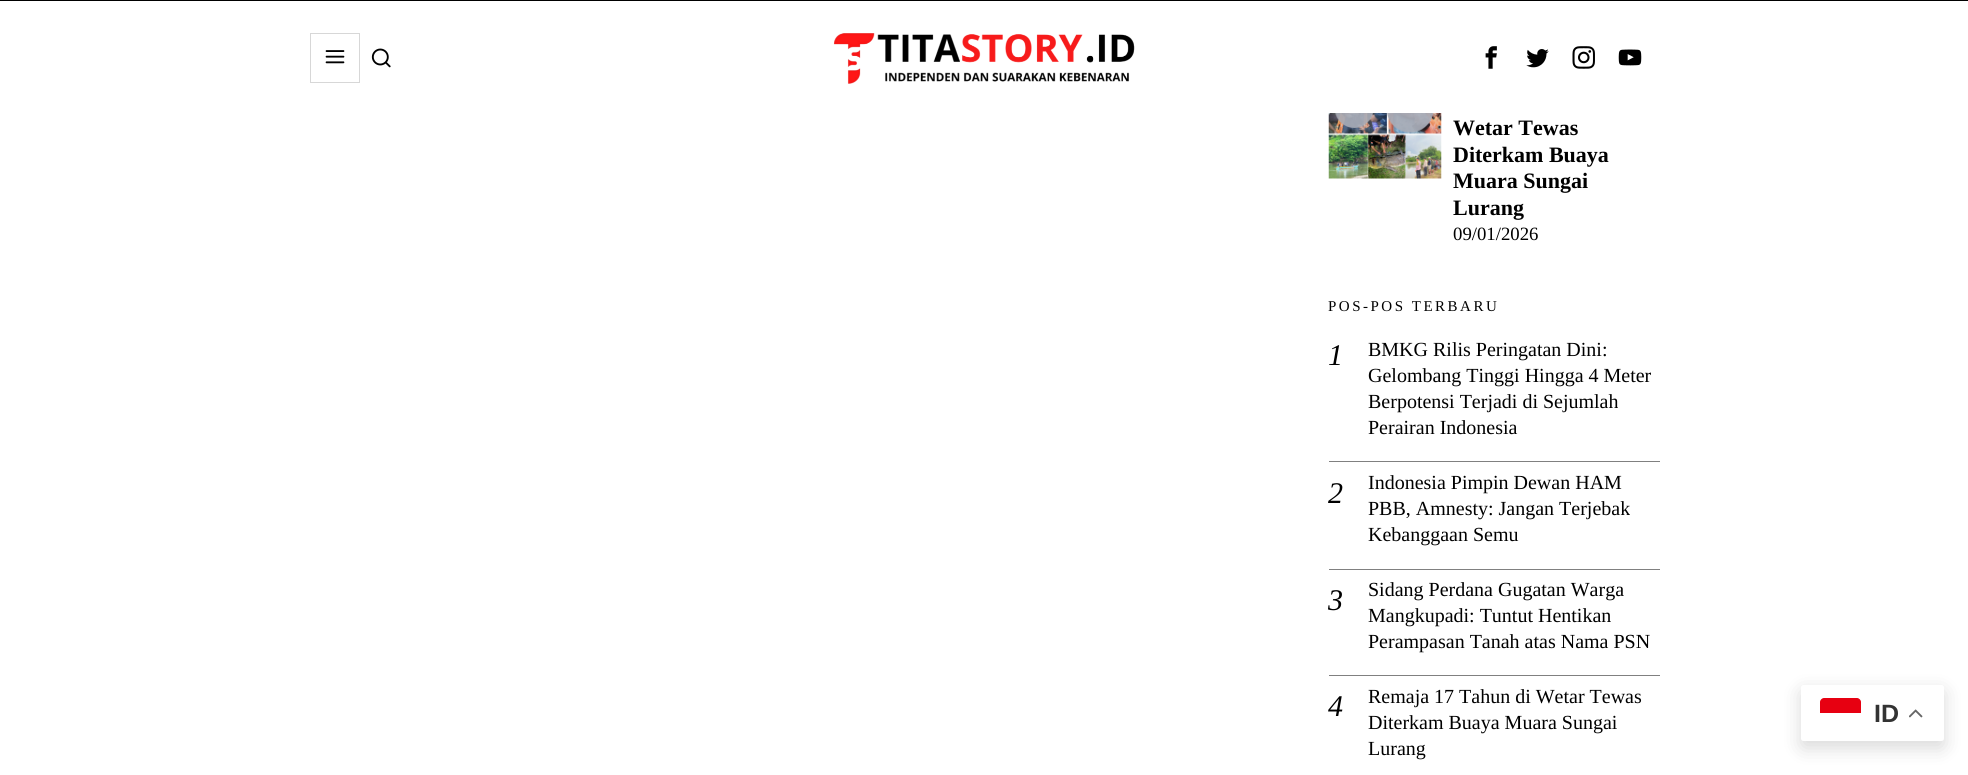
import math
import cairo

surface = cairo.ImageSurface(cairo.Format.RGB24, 1968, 775)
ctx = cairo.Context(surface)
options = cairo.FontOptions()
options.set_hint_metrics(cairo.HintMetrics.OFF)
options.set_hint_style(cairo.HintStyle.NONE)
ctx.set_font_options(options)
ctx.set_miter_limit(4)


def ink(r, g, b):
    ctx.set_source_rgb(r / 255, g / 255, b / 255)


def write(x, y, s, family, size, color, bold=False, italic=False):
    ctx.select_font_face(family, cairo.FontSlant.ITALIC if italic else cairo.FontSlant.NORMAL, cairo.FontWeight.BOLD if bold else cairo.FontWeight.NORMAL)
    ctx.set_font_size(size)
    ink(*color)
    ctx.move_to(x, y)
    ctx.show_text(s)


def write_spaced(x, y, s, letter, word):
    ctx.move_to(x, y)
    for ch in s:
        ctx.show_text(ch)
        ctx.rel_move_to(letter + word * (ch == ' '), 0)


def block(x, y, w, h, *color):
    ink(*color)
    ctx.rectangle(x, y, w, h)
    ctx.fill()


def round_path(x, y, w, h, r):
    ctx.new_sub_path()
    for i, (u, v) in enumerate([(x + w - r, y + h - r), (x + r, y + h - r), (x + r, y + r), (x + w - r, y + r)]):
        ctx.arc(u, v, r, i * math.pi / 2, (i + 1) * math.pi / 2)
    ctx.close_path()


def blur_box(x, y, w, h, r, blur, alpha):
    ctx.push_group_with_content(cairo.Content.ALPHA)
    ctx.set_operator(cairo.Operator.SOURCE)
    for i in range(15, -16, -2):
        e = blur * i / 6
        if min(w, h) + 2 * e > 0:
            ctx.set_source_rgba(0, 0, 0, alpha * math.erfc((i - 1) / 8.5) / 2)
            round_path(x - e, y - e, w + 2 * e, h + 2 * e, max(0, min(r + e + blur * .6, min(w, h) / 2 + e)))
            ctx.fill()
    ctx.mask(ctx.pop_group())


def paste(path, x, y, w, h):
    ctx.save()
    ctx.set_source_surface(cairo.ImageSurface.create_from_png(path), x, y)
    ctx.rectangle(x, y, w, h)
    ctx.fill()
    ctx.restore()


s1 = dict(family="Liberation Serif", size=22, color=(0, 0, 0), bold=True)
s2 = dict(family="Liberation Serif", size=18.75, color=(0, 0, 0))
s3 = dict(family="Liberation Serif", size=30, color=(0, 0, 0), italic=True)
s4 = dict(family="Liberation Serif", size=20, color=(0, 0, 0))
s5 = dict(family="Liberation Sans", size=25, color=(51, 51, 51), bold=True)

ink(255, 255, 255)
ctx.paint()
block(0, 0, 1968, 1, 0, 0, 0)
ctx.rectangle(310.5, 33.5, 49, 49)
ink(215, 215, 215)
ctx.set_line_width(1)
ctx.stroke()
paste("pic1.png", 325, 50, 20, 14)
paste("pic2.png", 371, 48, 20, 20)
paste("pic3.png", 833, 33, 302, 51)
paste("pic4.png", 1485, 46, 12, 23)
paste("pic5.png", 1526, 49, 23, 19)
paste("pic6.png", 1572, 46, 23, 23)
paste("pic7.png", 1618, 49, 24, 17)
paste("pic8.png", 1328, 113, 114, 66)
write(1453, 135, "Wetar Tewas", **s1)
write(1453, 162, "Diterkam Buaya", **s1)
write(1453, 188, "Muara Sungai", **s1)
write(1453, 215, "Lurang", **s1)
write(1453, 240, "09/01/2026", **s2)
ctx.set_font_size(15)
write_spaced(1328, 311, "POS-POS TERBARU", 2.5, 0)
write(1328, 365, "1", **s3)
write(1368, 356, "BMKG Rilis Peringatan Dini:", **s4)
write(1368, 382, "Gelombang Tinggi Hingga 4 Meter", **s4)
write(1368, 408, "Berpotensi Terjadi di Sejumlah", **s4)
write(1368, 434, "Perairan Indonesia", **s4)
block(1329, 461, 331, 1, 128, 128, 128)
write(1328, 503, "2", **s3)
write(1368, 489, "Indonesia Pimpin Dewan HAM", **s4)
write(1368, 515, "PBB, Amnesty: Jangan Terjebak", **s4)
write(1368, 541, "Kebanggaan Semu", **s4)
block(1329, 569, 331, 1, 128, 128, 128)
write(1328, 610, "3", **s3)
write(1368, 596, "Sidang Perdana Gugatan Warga", **s4)
write(1368, 622, "Mangkupadi: Tuntut Hentikan", **s4)
write(1368, 648, "Perampasan Tanah atas Nama PSN", **s4)
block(1329, 675, 331, 1, 128, 128, 128)
write(1328, 716, "4", **s3)
write(1368, 703, "Remaja 17 Tahun di Wetar Tewas", **s4)
write(1368, 729, "Diterkam Buaya Muara Sungai", **s4)
write(1368, 755, "Lurang", **s4)
ink(0, 0, 0)
blur_box(1801, 691, 143, 57, 2.5, 9.5, 0.15)
ink(255, 255, 255)
round_path(1801, 685, 143, 56, 2.5)
ctx.fill()
ink(231, 0, 17)
ctx.new_path()
ctx.move_to(1824, 698)
ctx.line_to(1857, 698)
ctx.curve_to(1859, 698, 1861, 700, 1861, 702)
ctx.line_to(1861, 714)
ctx.line_to(1820, 714)
ctx.line_to(1820, 702)
ctx.curve_to(1820, 700, 1822, 698, 1824, 698)
ctx.close_path()
ctx.fill()
ctx.save()
round_path(1820, 698, 41, 31, 4)
ctx.clip()
block(1820, 713, 41, 15, 255, 255, 255)
ctx.restore()
write(1874, 722, "ID", **s5)
paste("pic9.png", 1909, 709, 14, 9)
surface.write_to_png("screenshot.png")
